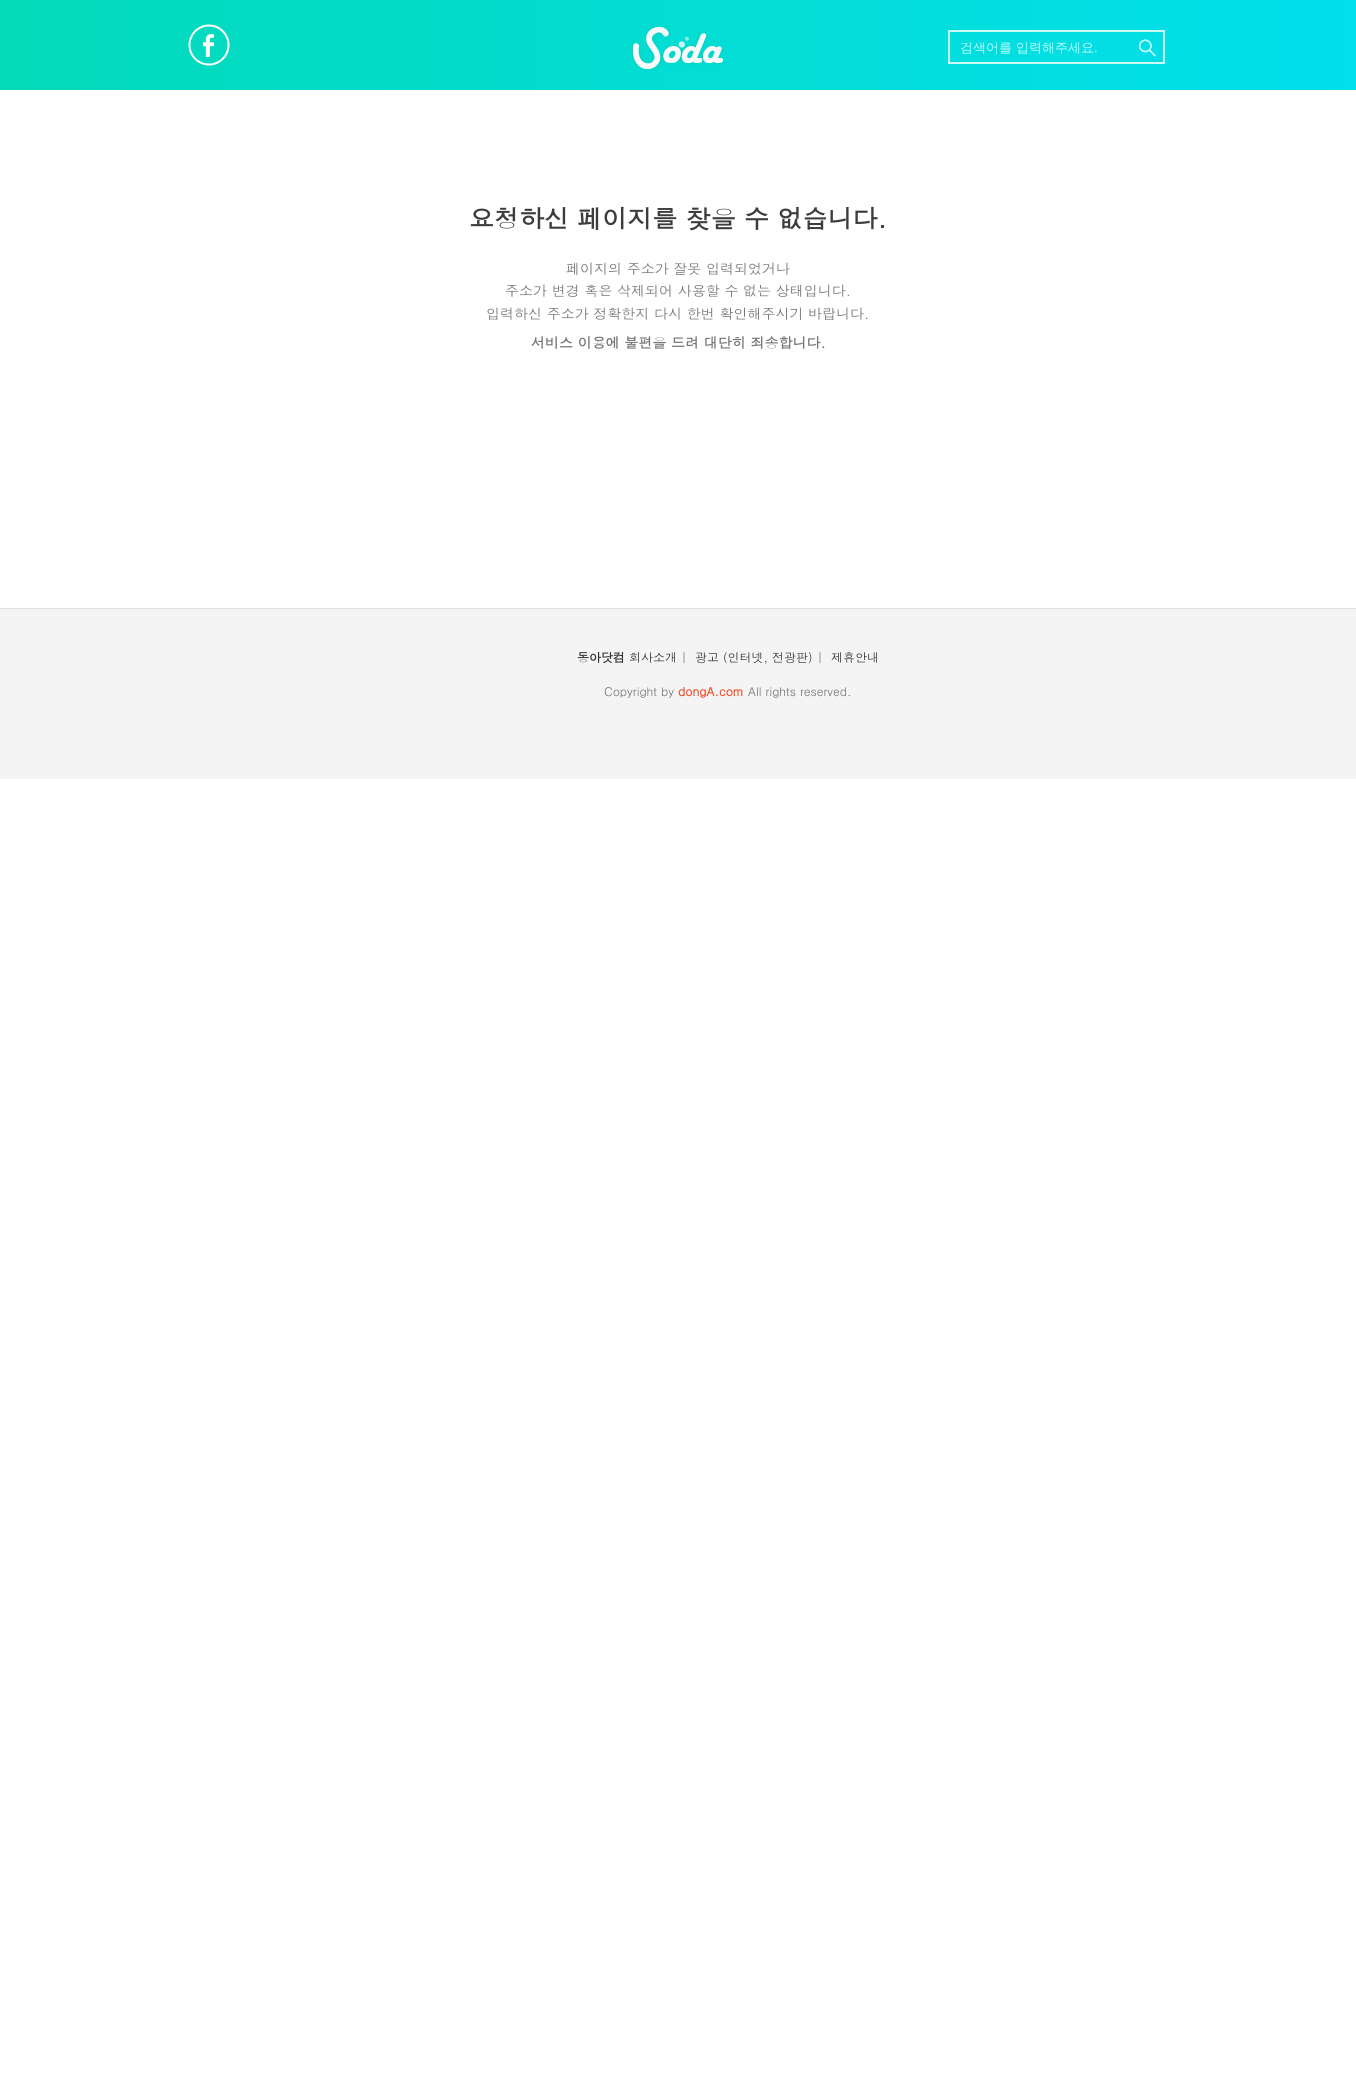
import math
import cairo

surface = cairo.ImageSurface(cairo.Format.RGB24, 1356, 2087)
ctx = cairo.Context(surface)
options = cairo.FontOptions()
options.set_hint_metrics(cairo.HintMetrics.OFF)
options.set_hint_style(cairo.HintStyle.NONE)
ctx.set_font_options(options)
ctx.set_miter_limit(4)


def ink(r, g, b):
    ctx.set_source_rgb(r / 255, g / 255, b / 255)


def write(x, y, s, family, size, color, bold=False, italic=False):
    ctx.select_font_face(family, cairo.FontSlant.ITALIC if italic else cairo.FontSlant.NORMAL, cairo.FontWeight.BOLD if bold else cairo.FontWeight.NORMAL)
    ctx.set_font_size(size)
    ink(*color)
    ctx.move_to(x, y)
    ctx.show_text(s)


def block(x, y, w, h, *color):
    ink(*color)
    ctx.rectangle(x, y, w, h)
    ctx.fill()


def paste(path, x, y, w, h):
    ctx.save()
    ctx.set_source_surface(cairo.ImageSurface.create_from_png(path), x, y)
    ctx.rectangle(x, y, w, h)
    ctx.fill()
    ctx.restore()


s1 = dict(family="WenQuanYi Zen Hei Medium", size=13, color=(189, 251, 255))
s2 = dict(family="Liberation Sans", size=13, color=(189, 251, 255))
s3 = dict(family="Dotum", size=25, color=(60, 60, 60), bold=True)
s4 = dict(family="Dotum", size=14, color=(118, 118, 118))
s5 = dict(family="Dotum", size=14, color=(118, 118, 118), bold=True)
s6 = dict(family="Dotum", size=12, color=(47, 47, 47), bold=True)
s7 = dict(family="Dotum", size=12, color=(47, 47, 47))
s8 = dict(family="Dotum", size=12, color=(109, 109, 109))
s9 = dict(family="Dotum", size=12, color=(241, 73, 34), bold=True)

ink(255, 255, 255)
ctx.paint()
gradient = cairo.LinearGradient(0, 45, 1356, 45)
gradient.add_color_stop_rgba(0, 0.012, 0.855, 0.725, 1)
gradient.add_color_stop_rgba(1, 0.008, 0.875, 0.929, 1)
ctx.set_source(gradient)
ctx.rectangle(0, 0, 1356, 90)
ctx.fill()
paste("pic1.png", 188, 24, 42, 42)
paste("pic2.png", 631, 25, 93, 46)
ctx.rectangle(949, 31, 215, 32)
ink(204, 249, 251)
ctx.stroke()
write(960, 52, "검색어를 입력해주세요", **s1)
write(1094, 52, ".", **s2)
paste("pic3.png", 1138, 39, 18, 18)
write(469, 228, "요청하신 페이지를 찾을 수 없습니다.", **s3)
write(566, 274, "페이지의 주소가 잘못 입력되었거나", **s4)
write(505, 296, "주소가 변경 혹은 삭제되어 사용할 수 없는 상태입니다.", **s4)
write(486, 319, "입력하신 주소가 정확한지 다시 한번 확인해주시기 바랍니다.", **s4)
write(531, 348, "서비스 이용에 불편을 드려 대단히 죄송합니다.", **s5)
block(0, 609, 1356, 170, 244, 244, 244)
block(0, 608, 1356, 1, 224, 224, 224)
write(577, 662, "동아닷컴", **s6)
write(629, 662, "회사소개", **s7)
write(681, 662, "|", **s8)
write(695, 662, "광고 (인터넷, 전광판)", **s7)
write(817, 662, "|", **s8)
write(831, 662, "제휴안내", **s7)
write(604, 696, "Copyright by", **s8)
write(678, 696, "dongA.com", **s9)
write(748, 696, "All rights reserved.", **s8)
surface.write_to_png("screenshot.png")
